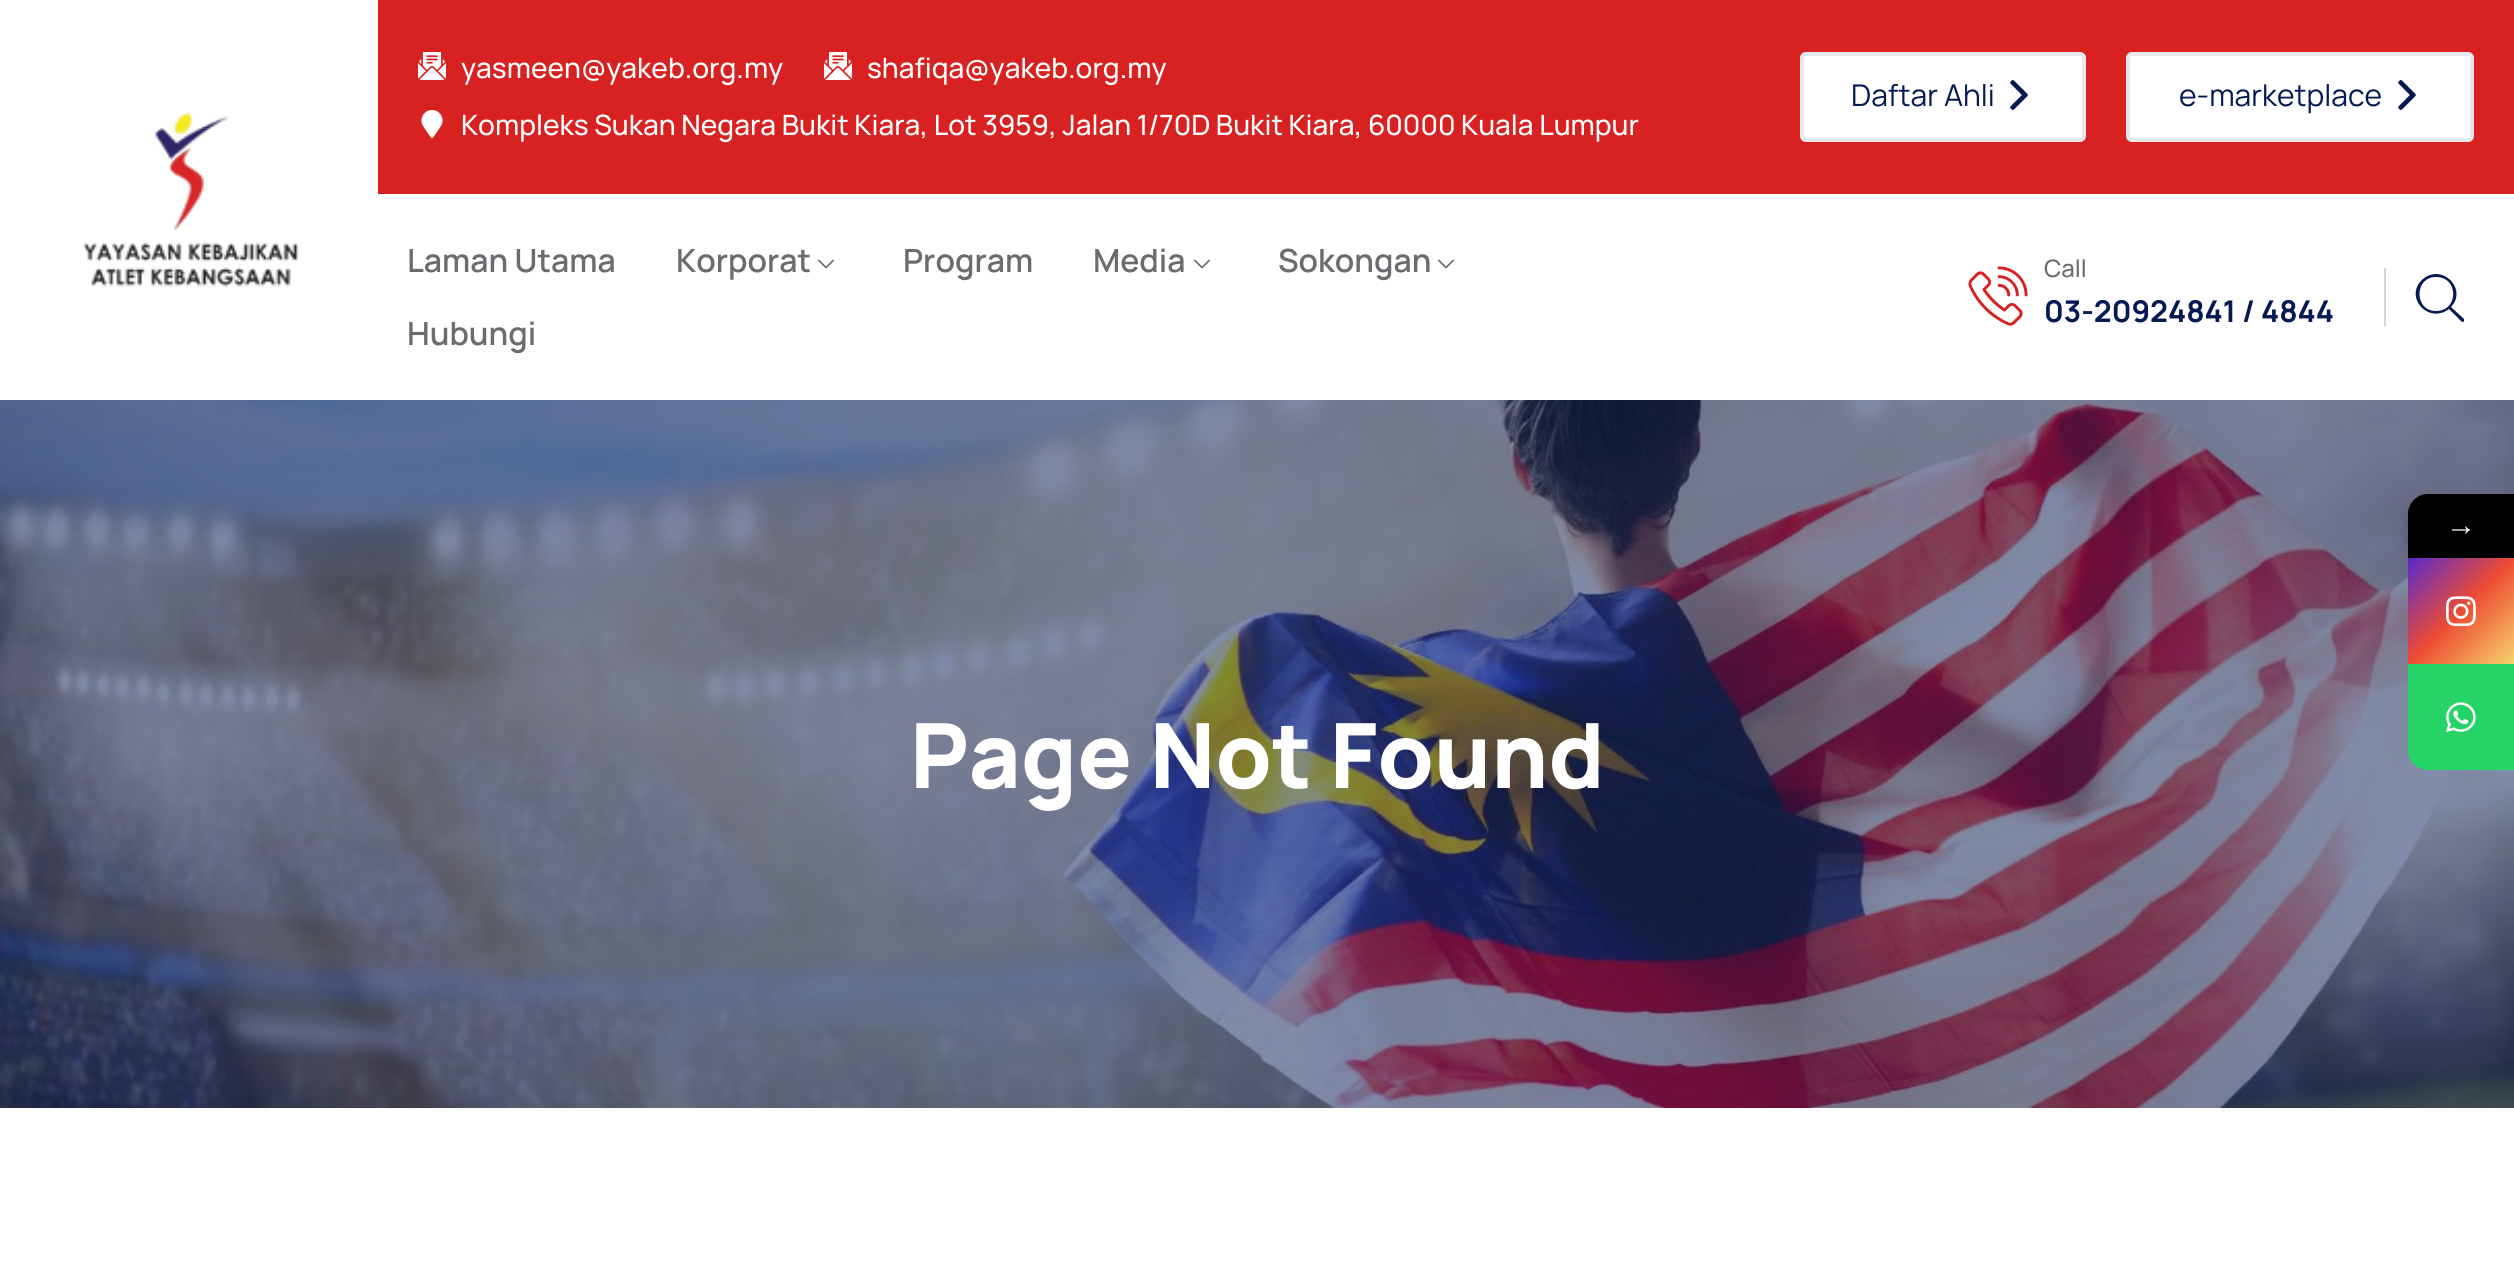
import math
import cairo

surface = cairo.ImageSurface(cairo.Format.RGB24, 2514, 1262)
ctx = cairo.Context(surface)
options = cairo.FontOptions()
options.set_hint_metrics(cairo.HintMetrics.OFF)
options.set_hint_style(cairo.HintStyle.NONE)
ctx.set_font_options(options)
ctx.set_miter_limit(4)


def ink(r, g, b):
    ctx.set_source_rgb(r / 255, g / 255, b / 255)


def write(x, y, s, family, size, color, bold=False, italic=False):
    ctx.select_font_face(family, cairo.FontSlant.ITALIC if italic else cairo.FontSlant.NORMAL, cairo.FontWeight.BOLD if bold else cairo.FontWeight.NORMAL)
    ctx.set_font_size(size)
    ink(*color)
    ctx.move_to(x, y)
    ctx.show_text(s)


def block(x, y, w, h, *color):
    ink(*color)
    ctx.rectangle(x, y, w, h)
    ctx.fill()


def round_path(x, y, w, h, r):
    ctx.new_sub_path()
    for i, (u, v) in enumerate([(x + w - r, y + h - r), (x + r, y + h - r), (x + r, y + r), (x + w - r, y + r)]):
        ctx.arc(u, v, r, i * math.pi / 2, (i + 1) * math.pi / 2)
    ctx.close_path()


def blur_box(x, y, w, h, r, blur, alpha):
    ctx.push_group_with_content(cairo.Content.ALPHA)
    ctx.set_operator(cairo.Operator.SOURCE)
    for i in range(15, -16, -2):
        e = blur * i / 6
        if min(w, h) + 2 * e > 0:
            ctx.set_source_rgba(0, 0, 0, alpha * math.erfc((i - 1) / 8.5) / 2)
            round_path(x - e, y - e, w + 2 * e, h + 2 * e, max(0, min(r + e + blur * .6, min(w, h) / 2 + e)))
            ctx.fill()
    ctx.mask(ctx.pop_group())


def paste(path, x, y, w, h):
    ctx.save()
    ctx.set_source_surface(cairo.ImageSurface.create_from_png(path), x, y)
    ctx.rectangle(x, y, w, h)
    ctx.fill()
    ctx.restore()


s1 = dict(family="Manrope Medium", size=28, color=(255, 255, 255))
s2 = dict(family="Manrope", size=30, color=(5, 26, 83))
s3 = dict(family="Manrope SemiBold", size=32, color=(107, 108, 112))
s4 = dict(family="Manrope Medium", size=24, color=(107, 108, 112))
s5 = dict(family="Manrope", size=30, color=(5, 26, 83), bold=True)
s6 = dict(family="Manrope ExtraBold", size=90, color=(255, 255, 255))
s7 = dict(family="Liberation Serif", size=30, color=(255, 255, 255))

ink(255, 255, 255)
ctx.paint()
paste("pic1.png", 83, 111, 216, 176)
block(378, 0, 2136, 194, 216, 34, 33)
paste("pic2.png", 418, 52, 28, 28)
write(461, 78, "yasmeen@yakeb.org.my", **s1)
paste("pic2.png", 824, 52, 28, 28)
write(867, 78, "shafiqa@yakeb.org.my", **s1)
paste("pic3.png", 421, 110, 22, 28)
write(461, 135, "Kompleks Sukan Negara Bukit Kiara, Lot 3959, Jalan 1/70D Bukit Kiara, 60000 Kuala Lumpur", **s1)
round_path(1800, 52, 286, 90, 6)
ctx.fill()
round_path(1802, 54, 282, 86, 4)
ctx.set_source_rgba(0.02, 0.102, 0.325, 0.1)
ctx.set_line_width(4)
ctx.stroke()
write(1851, 106, "Daftar Ahli", **s2)
paste("pic4.png", 2010, 80, 18, 30)
ink(255, 255, 255)
round_path(2126, 52, 348, 90, 6)
ctx.fill()
round_path(2128, 54, 344, 86, 4)
ctx.set_source_rgba(0.02, 0.102, 0.325, 0.1)
ctx.stroke()
write(2179, 106, "e-marketplace", **s2)
paste("pic4.png", 2398, 80, 18, 30)
write(407, 272, "Laman Utama", **s3)
write(676, 272, "Korporat", **s3)
paste("pic5.png", 818, 259, 16, 10)
write(903, 272, "Program", **s3)
write(1093, 272, "Media", **s3)
paste("pic5.png", 1194, 259, 16, 10)
write(1278, 272, "Sokongan", **s3)
paste("pic5.png", 1438, 259, 16, 10)
write(407, 345, "Hubungi", **s3)
paste("pic6.png", 1968, 266, 60, 60)
write(2044, 277, "Call", **s4)
write(2044, 322, "03-20924841 / 4844", **s5)
block(2384, 268, 2, 58, 210, 213, 223)
ink(5, 26, 83)
ctx.new_path()
ctx.move_to(2464, 319)
ctx.line_to(2451, 307)
ctx.curve_to(2468, 289, 2442, 263, 2423, 279)
ctx.curve_to(2403, 296, 2428, 325, 2449, 309)
ctx.line_to(2457, 317)
ctx.curve_to(2460, 320, 2463, 324, 2464, 321)
ctx.close_path()
ctx.move_to(2436, 311)
ctx.curve_to(2414, 311, 2414, 277, 2436, 277)
ctx.curve_to(2459, 277, 2459, 311, 2436, 311)
ctx.close_path()
ctx.fill()
paste("pic7.png", 0, 400, 2514, 708)
write(910, 788, "Page Not Found", **s6)
ink(0, 0, 0)
blur_box(2408, 500, 106, 64, 20, 6, 0.16)
ink(0, 0, 0)
ctx.new_path()
ctx.move_to(2428, 494)
ctx.line_to(2514, 494)
ctx.line_to(2514, 558)
ctx.line_to(2408, 558)
ctx.line_to(2408, 514)
ctx.curve_to(2408, 503, 2417, 494, 2428, 494)
ctx.close_path()
ctx.fill()
write(2446, 535, "→", **s7)
gradient = cairo.LinearGradient(2408, 558, 2514, 664)
gradient.add_color_stop_rgba(0, 0.345, 0.169, 0.804, 1)
gradient.add_color_stop_rgba(0.5, 0.929, 0.298, 0.2, 1)
gradient.add_color_stop_rgba(1, 0.969, 0.827, 0.435, 1)
ctx.set_source(gradient)
ctx.rectangle(2408, 558, 106, 106)
ctx.fill()
paste("pic8.png", 2446, 596, 30, 31)
ink(38, 211, 103)
ctx.new_path()
ctx.move_to(2408, 664)
ctx.line_to(2514, 664)
ctx.line_to(2514, 770)
ctx.line_to(2428, 770)
ctx.curve_to(2417, 770, 2408, 761, 2408, 750)
ctx.close_path()
ctx.fill()
paste("pic9.png", 2446, 702, 30, 31)
surface.write_to_png("screenshot.png")
